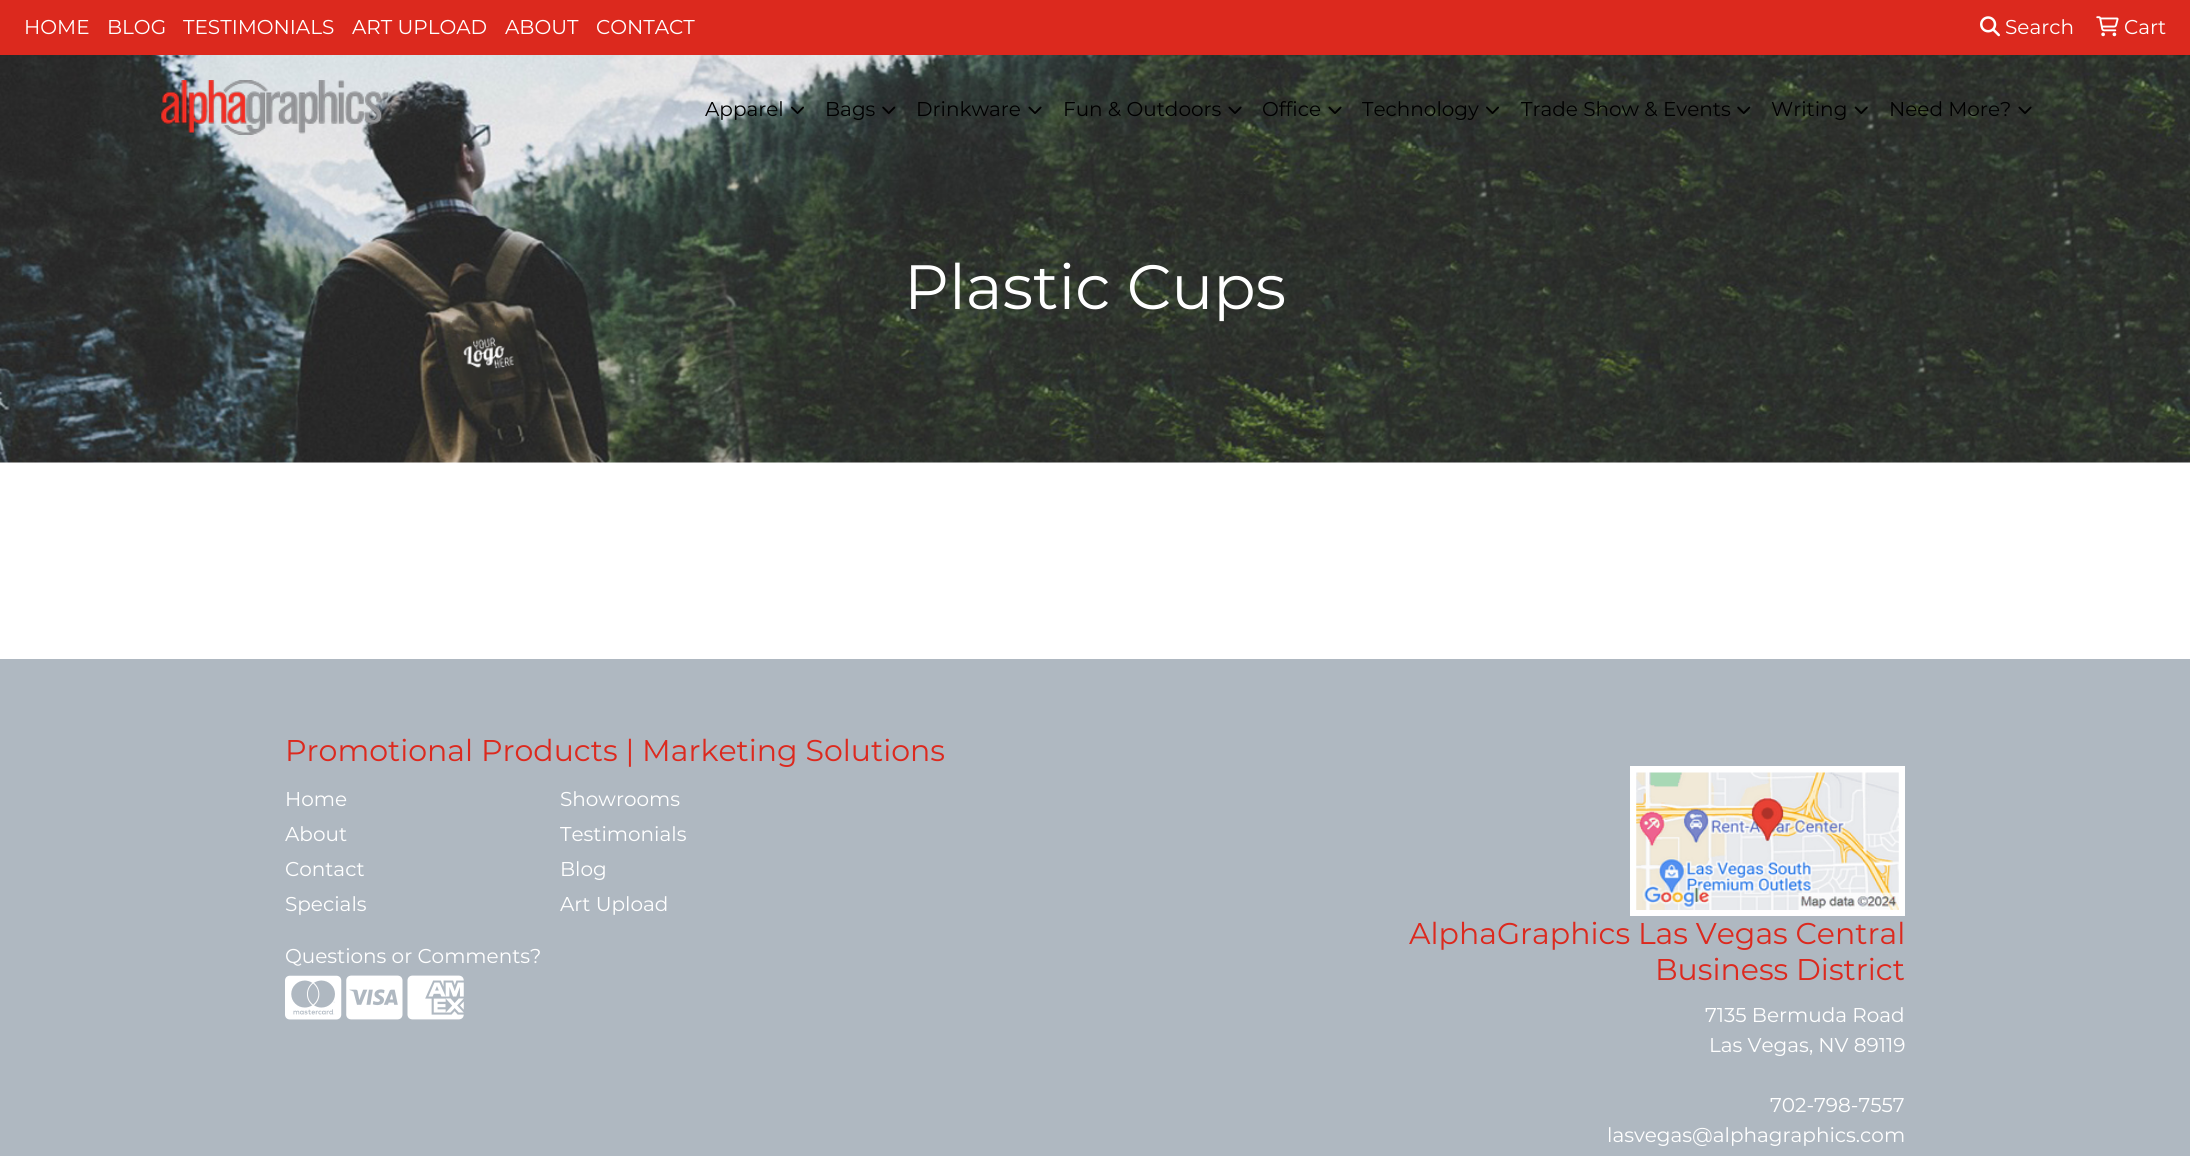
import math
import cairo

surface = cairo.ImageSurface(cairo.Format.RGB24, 2190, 1156)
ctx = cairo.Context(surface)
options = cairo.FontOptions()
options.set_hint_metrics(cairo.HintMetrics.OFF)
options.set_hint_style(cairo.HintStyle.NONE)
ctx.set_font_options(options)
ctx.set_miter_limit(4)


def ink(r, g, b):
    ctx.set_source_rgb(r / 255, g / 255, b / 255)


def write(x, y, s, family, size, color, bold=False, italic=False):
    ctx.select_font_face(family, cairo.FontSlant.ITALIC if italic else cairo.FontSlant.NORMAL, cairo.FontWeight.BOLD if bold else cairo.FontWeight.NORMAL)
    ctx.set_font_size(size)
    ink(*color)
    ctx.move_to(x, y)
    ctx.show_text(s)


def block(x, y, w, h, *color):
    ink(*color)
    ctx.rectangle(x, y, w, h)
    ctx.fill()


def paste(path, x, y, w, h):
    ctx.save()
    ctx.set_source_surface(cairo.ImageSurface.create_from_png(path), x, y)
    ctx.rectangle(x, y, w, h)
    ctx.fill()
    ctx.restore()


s1 = dict(family="Montserrat Thin", size=20, color=(255, 255, 255))
s2 = dict(family="Montserrat Thin", size=20, color=(0, 0, 0))
s3 = dict(family="Montserrat Thin", size=62.5, color=(255, 255, 255))
s4 = dict(family="Montserrat Thin", size=30, color=(220, 41, 30))

ink(255, 255, 255)
ctx.paint()
block(0, 0, 2190, 55, 220, 41, 30)
write(24, 34, "HOME", **s1)
write(107, 34, "BLOG", **s1)
write(183, 34, "TESTIMONIALS", **s1)
write(352, 34, "ART UPLOAD", **s1)
write(505, 34, "ABOUT", **s1)
write(596, 34, "CONTACT", **s1)
paste("pic1.png", 1980, 16, 20, 21)
write(2005, 34, "Search", **s1)
paste("pic2.png", 2096, 16, 23, 21)
write(2124, 34, "Cart", **s1)
paste("pic13.png", 0, 55, 2190, 408)
paste("pic3.png", 161, 80, 227, 55)
write(705, 116, "Apparel", **s2)
paste("pic4.png", 791, 106, 13, 8)
write(825, 116, "Bags", **s2)
paste("pic5.png", 882, 106, 14, 8)
write(916, 116, "Drinkware", **s2)
paste("pic6.png", 1028, 106, 14, 8)
write(1063, 116, "Fun & Outdoors", **s2)
paste("pic7.png", 1228, 106, 14, 8)
write(1262, 116, "Office", **s2)
paste("pic8.png", 1328, 106, 14, 8)
write(1362, 116, "Technology", **s2)
paste("pic9.png", 1486, 106, 13, 8)
write(1521, 116, "Trade Show & Events", **s2)
paste("pic10.png", 1737, 106, 14, 8)
write(1771, 116, "Writing", **s2)
paste("pic11.png", 1854, 106, 14, 8)
write(1889, 116, "Need More?", **s2)
paste("pic12.png", 2018, 106, 14, 8)
write(904, 309, "Plastic Cups", **s3)
block(0, 659, 2190, 497, 175, 184, 193)
write(285, 761, "Promotional Products | Marketing Solutions", **s4)
write(285, 806, "Home", **s1)
write(285, 841, "About", **s1)
write(285, 876, "Contact", **s1)
write(285, 911, "Specials", **s1)
write(560, 806, "Showrooms", **s1)
write(560, 841, "Testimonials", **s1)
write(560, 876, "Blog", **s1)
write(560, 911, "Art Upload", **s1)
write(285, 963, "Questions or Comments?", **s1)
paste("pic14.png", 285, 975, 57, 45)
paste("pic15.png", 346, 975, 57, 45)
paste("pic16.png", 407, 975, 57, 45)
block(1630, 766, 275, 150, 255, 255, 255)
paste("pic17.png", 1636, 772, 263, 138)
write(1409, 944, "AlphaGraphics Las Vegas Central", **s4)
write(1655, 980, "Business District", **s4)
write(1705, 1022, "7135 Bermuda Road", **s1)
write(1709, 1052, "Las Vegas, NV 89119", **s1)
write(1770, 1112, "702-798-7557", **s1)
write(1607, 1142, "lasvegas@alphagraphics.com", **s1)
surface.write_to_png("screenshot.png")
